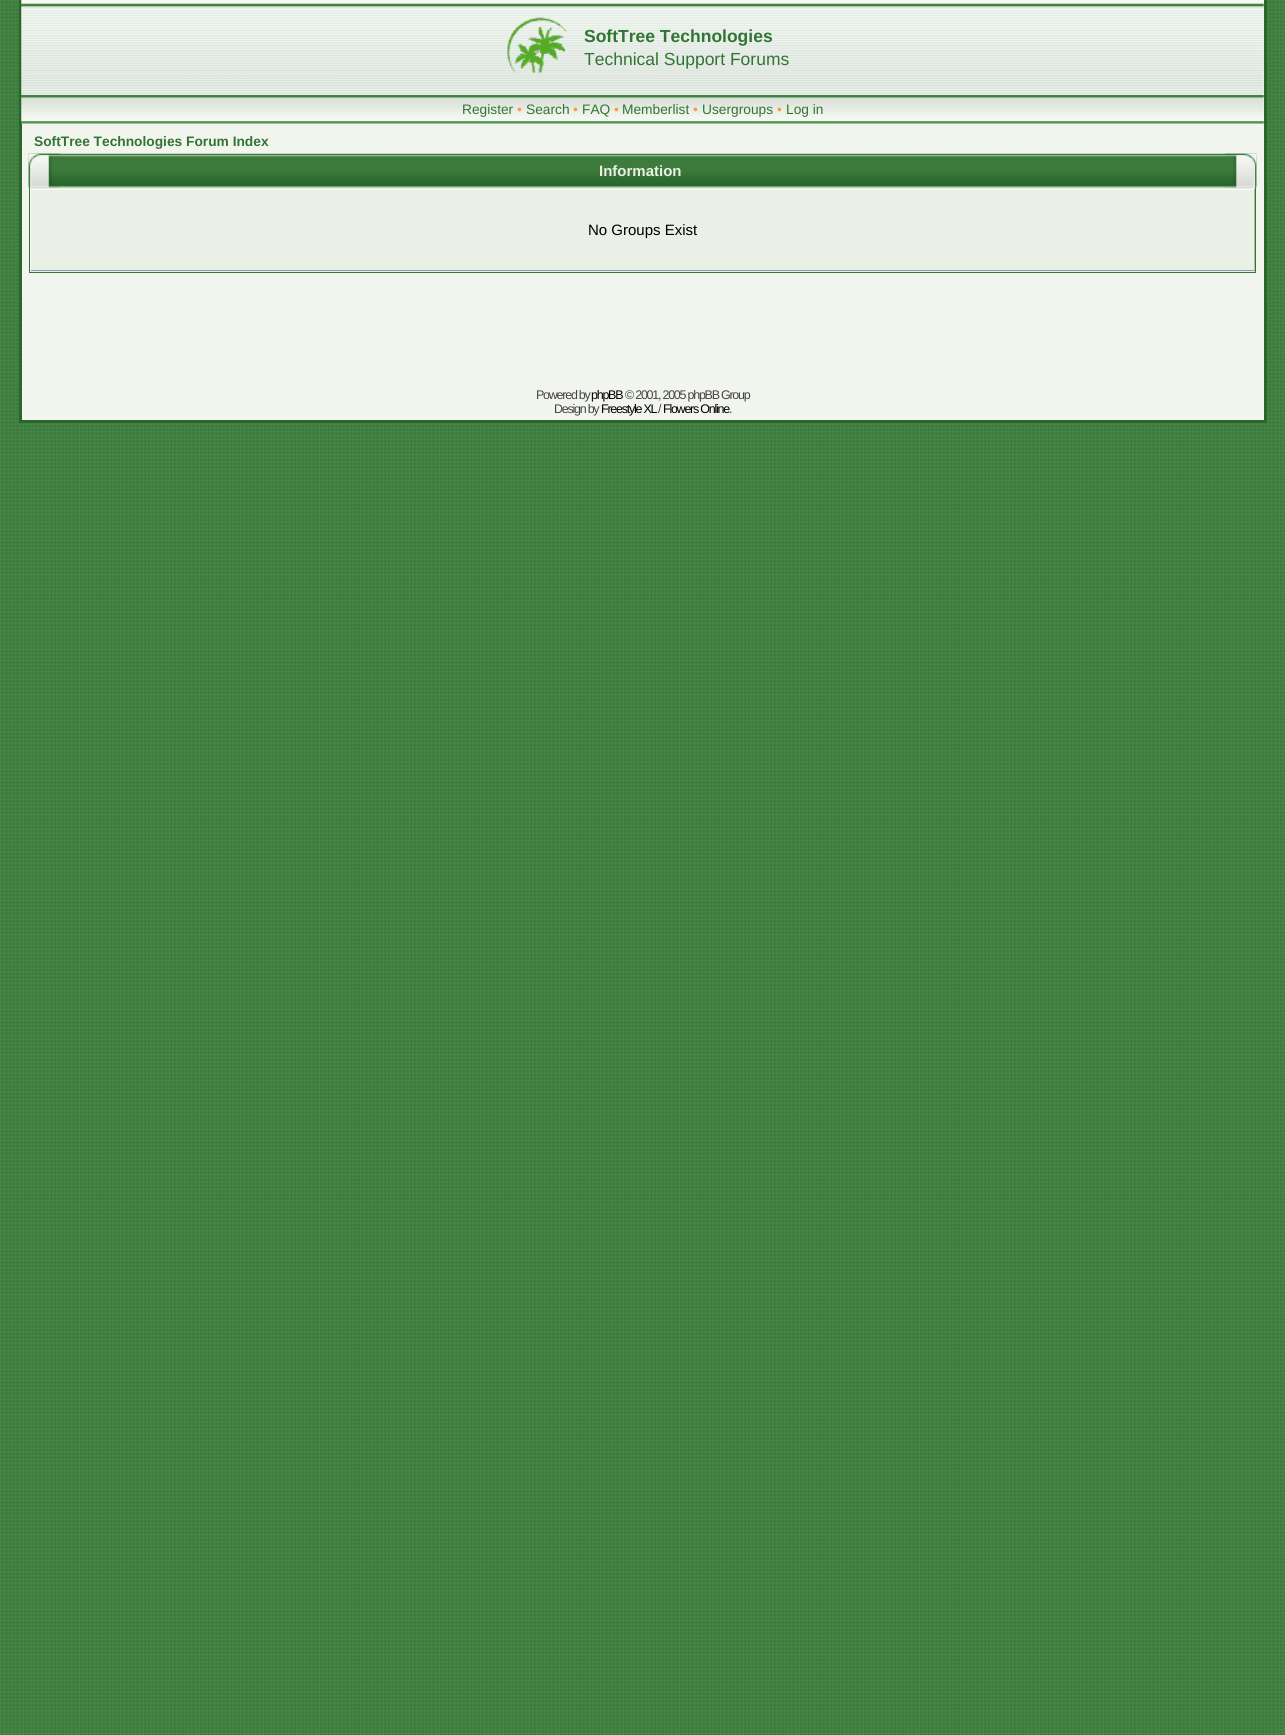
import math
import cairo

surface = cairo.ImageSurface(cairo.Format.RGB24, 1285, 1735)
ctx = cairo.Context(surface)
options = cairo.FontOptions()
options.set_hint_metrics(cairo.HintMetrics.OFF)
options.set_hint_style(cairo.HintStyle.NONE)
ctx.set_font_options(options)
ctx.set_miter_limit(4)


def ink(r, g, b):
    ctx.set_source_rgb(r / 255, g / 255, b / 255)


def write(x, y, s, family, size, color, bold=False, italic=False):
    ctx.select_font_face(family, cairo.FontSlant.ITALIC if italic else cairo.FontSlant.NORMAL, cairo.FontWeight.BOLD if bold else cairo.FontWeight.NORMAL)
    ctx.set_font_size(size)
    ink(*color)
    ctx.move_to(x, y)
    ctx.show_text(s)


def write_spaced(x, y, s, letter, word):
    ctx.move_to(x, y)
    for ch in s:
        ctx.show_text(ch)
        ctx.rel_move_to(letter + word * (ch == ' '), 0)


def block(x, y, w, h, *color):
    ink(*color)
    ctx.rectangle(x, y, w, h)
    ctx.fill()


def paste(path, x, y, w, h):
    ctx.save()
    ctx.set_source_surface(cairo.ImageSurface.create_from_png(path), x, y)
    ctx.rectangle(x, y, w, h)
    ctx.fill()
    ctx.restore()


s1 = dict(family="Liberation Sans", size=17.5, color=(50, 117, 51), bold=True)
s2 = dict(family="Liberation Sans", size=17.5, color=(50, 117, 51))
s3 = dict(family="Liberation Sans", size=13.75, color=(50, 117, 51))
s4 = dict(family="Liberation Sans", size=13.75, color=(255, 150, 74))
s5 = dict(family="Liberation Sans", size=13.75, color=(50, 117, 51), bold=True)
s6 = dict(family="Liberation Sans", size=15, color=(234, 240, 230), bold=True)
s7 = dict(family="Liberation Sans", size=15, color=(0, 0, 0))

ink(255, 255, 255)
ctx.paint()
paste("pic1.png", 0, 423, 1285, 1312)
paste("pic2.png", 0, 0, 1285, 423)
block(22, 0, 1242, 420, 242, 245, 237)
block(1264, 0, 3, 423, 40, 102, 44)
block(19, 420, 1247, 3, 40, 102, 44)
block(19, 0, 3, 423, 40, 102, 44)
paste("pic3.png", 21, 0, 1243, 95)
paste("pic4.png", 507, 17, 60, 56)
write(584, 42, "SoftTree Technologies", **s1)
write(584, 65, "Technical Support Forums", **s2)
paste("pic5.png", 21, 95, 1243, 29)
write(462, 114, "Register", **s3)
write(517, 114, "•", **s4)
write(526, 114, "Search", **s3)
write(573, 114, "•", **s4)
write(582, 114, "FAQ", **s3)
write(614, 114, "•", **s4)
write(622, 114, "Memberlist", **s3)
write(693, 114, "•", **s4)
write(702, 114, "Usergroups", **s3)
write(777, 114, "•", **s4)
write(786, 114, "Log in", **s3)
write(34, 146, "SoftTree Technologies Forum Index", **s5)
block(30, 187, 1225, 85, 234, 240, 230)
ctx.rectangle(29.5, 154.5, 1226, 118)
ink(50, 117, 51)
ctx.set_line_width(1)
ctx.stroke()
paste("pic6.png", 28, 153, 32, 35)
paste("pic7.png", 28, 153, 32, 35)
paste("pic8.png", 60, 153, 1165, 35)
write(599, 176, "Information", **s6)
paste("pic9.png", 1225, 153, 32, 35)
paste("pic10.png", 1225, 153, 32, 35)
block(30, 189, 1225, 1, 245, 247, 249)
block(1254, 189, 1, 82, 162, 198, 161)
block(30, 270, 1225, 1, 132, 154, 177)
block(30, 189, 1, 82, 245, 247, 249)
write(588, 235, "No Groups Exist", **s7)
ctx.set_font_size(12.5)
ink(68, 68, 68)
write_spaced(536, 399, "Powered by", -1.25, 0)
ink(0, 0, 0)
write_spaced(591, 399, "phpBB", -1.25, 0)
ink(68, 68, 68)
write_spaced(625, 399, "© 2001, 2005 phpBB Group", -1.25, 0)
write_spaced(554, 413, "Design by", -1.25, 0)
ink(0, 0, 0)
write_spaced(601, 413, "Freestyle XL", -1.25, 0)
ink(68, 68, 68)
write_spaced(658, 413, "/", -1.25, 0)
ink(0, 0, 0)
write_spaced(663, 413, "Flowers Online", -1.25, 0)
ink(68, 68, 68)
write_spaced(729, 413, ".", -1.25, 0)
surface.write_to_png("screenshot.png")
